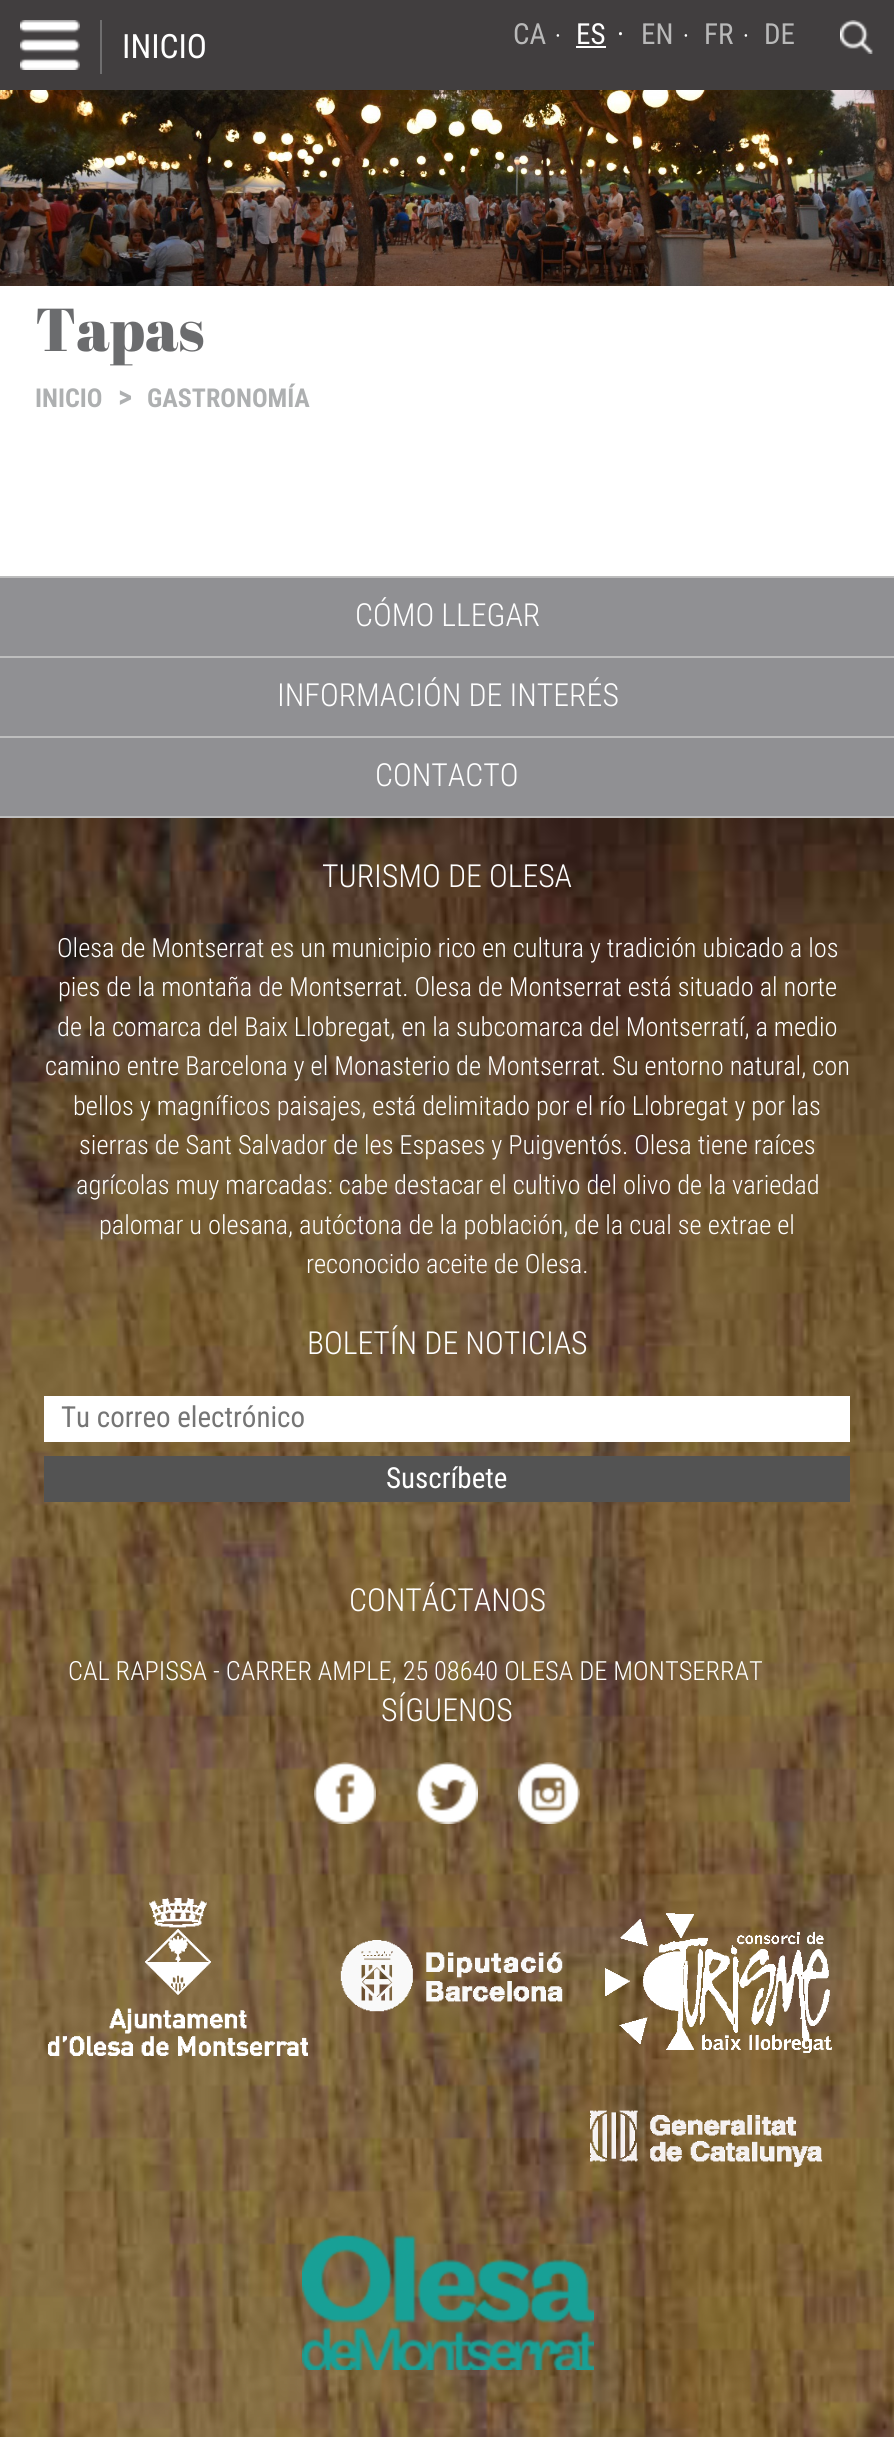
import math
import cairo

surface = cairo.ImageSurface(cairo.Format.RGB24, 894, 2437)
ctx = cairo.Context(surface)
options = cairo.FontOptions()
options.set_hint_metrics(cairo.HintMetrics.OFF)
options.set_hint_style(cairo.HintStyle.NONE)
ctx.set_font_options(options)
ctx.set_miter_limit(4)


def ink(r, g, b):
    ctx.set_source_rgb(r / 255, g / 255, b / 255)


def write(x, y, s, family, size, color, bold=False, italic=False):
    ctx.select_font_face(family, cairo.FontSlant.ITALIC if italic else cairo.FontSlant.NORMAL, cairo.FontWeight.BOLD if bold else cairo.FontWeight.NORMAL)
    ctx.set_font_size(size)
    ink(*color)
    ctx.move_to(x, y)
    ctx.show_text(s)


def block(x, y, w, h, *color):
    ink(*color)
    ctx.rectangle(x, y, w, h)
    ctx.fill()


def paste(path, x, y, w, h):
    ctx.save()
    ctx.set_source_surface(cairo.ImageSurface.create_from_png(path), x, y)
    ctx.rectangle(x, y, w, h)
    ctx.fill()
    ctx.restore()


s1 = dict(family="Roboto Condensed", size=33.5, color=(255, 255, 255))
s2 = dict(family="Roboto Condensed", size=29, color=(185, 185, 185))
s3 = dict(family="Roboto Condensed", size=24, color=(255, 255, 255))
s4 = dict(family="Roboto Condensed", size=29, color=(255, 255, 255))
s5 = dict(family="Abril Fatface", size=60.5, color=(107, 108, 110))
s6 = dict(family="Roboto Condensed", size=26, color=(174, 176, 177), bold=True)
s7 = dict(family="Roboto Condensed", size=31, color=(174, 176, 177), bold=True)
s8 = dict(family="Roboto Condensed Light", size=31.75, color=(255, 255, 255))
s9 = dict(family="Roboto Condensed Light", size=26.4, color=(255, 255, 255))
s10 = dict(family="Roboto Condensed", size=29, color=(117, 117, 117))

ink(255, 255, 255)
ctx.paint()
block(0, 0, 894, 90, 65, 62, 63)
paste("pic1.png", 20, 20, 60, 50)
block(100, 20, 2, 54, 111, 110, 111)
write(122, 58, "INICIO", **s1)
write(513, 44, "CA", **s2)
write(555, 44, "·", **s3)
write(576, 44, "ES", **s4)
block(576, 46, 30, 2, 255, 255, 255)
write(617, 44, "·", **s4)
write(641, 44, "EN", **s2)
write(683, 44, "·", **s3)
write(704, 44, "FR", **s2)
write(743, 44, "·", **s3)
write(764, 44, "DE", **s2)
paste("pic2.png", 840, 20, 33, 34)
paste("pic3.png", 0, 90, 894, 196)
write(35, 351, "Tapas", **s5)
write(35, 407, "INICIO", **s6)
write(118, 407, ">", **s7)
write(147, 407, "GASTRONOMÍA", **s6)
block(0, 578, 894, 238, 144, 144, 147)
block(0, 576, 894, 2, 189, 189, 189)
write(355, 626, "CÓMO LLEGAR", **s8)
block(0, 656, 894, 2, 189, 189, 189)
write(277, 706, "INFORMACIÓN DE INTERÉS", **s8)
block(0, 736, 894, 2, 189, 189, 189)
block(0, 816, 894, 2, 189, 189, 189)
write(375, 786, "CONTACTO", **s8)
paste("pic4.png", 0, 818, 894, 1619)
write(322, 887, "TURISMO DE OLESA", **s8)
write(57, 957, "Olesa de Montserrat es un municipio rico en cultura y tradición ubicado a los", **s9)
write(58, 996, "pies de la montaña de Montserrat. Olesa de Montserrat está situado al norte", **s9)
write(57, 1036, "de la comarca del Baix Llobregat, en la subcomarca del Montserratí, a medio", **s9)
write(45, 1075, "camino entre Barcelona y el Monasterio de Montserrat. Su entorno natural, con", **s9)
write(73, 1115, "bellos y magníficos paisajes, está delimitado por el río Llobregat y por las", **s9)
write(79, 1154, "sierras de Sant Salvador de les Espases y Puigventós. Olesa tiene raíces", **s9)
write(76, 1194, "agrícolas muy marcadas: cabe destacar el cultivo del olivo de la variedad", **s9)
write(99, 1234, "palomar u olesana, autóctona de la población, de la cual se extrae el", **s9)
write(306, 1273, "reconocido aceite de Olesa.", **s9)
write(307, 1354, "BOLETÍN DE NOTICIAS", **s8)
block(44, 1396, 806, 46, 255, 255, 255)
write(61, 1427, "Tu correo electrónico", **s10)
block(44, 1456, 806, 46, 83, 83, 83)
write(386, 1488, "Suscríbete", **s4)
write(349, 1611, "CONTÁCTANOS", **s8)
write(68, 1680, "CAL RAPISSA - CARRER AMPLE, 25", **s9)
write(434, 1680, "08640 OLESA DE MONTSERRAT", **s9)
write(381, 1721, "SÍGUENOS", **s8)
paste("pic5.png", 314, 1762, 62, 62)
paste("pic6.png", 416, 1762, 62, 62)
paste("pic7.png", 518, 1762, 62, 62)
paste("pic8.png", 48, 1898, 260, 158)
paste("pic9.png", 605, 1913, 227, 140)
paste("pic10.png", 340, 1940, 223, 72)
paste("pic11.png", 590, 2110, 233, 57)
paste("pic12.png", 302, 2235, 292, 135)
surface.write_to_png("screenshot.png")
